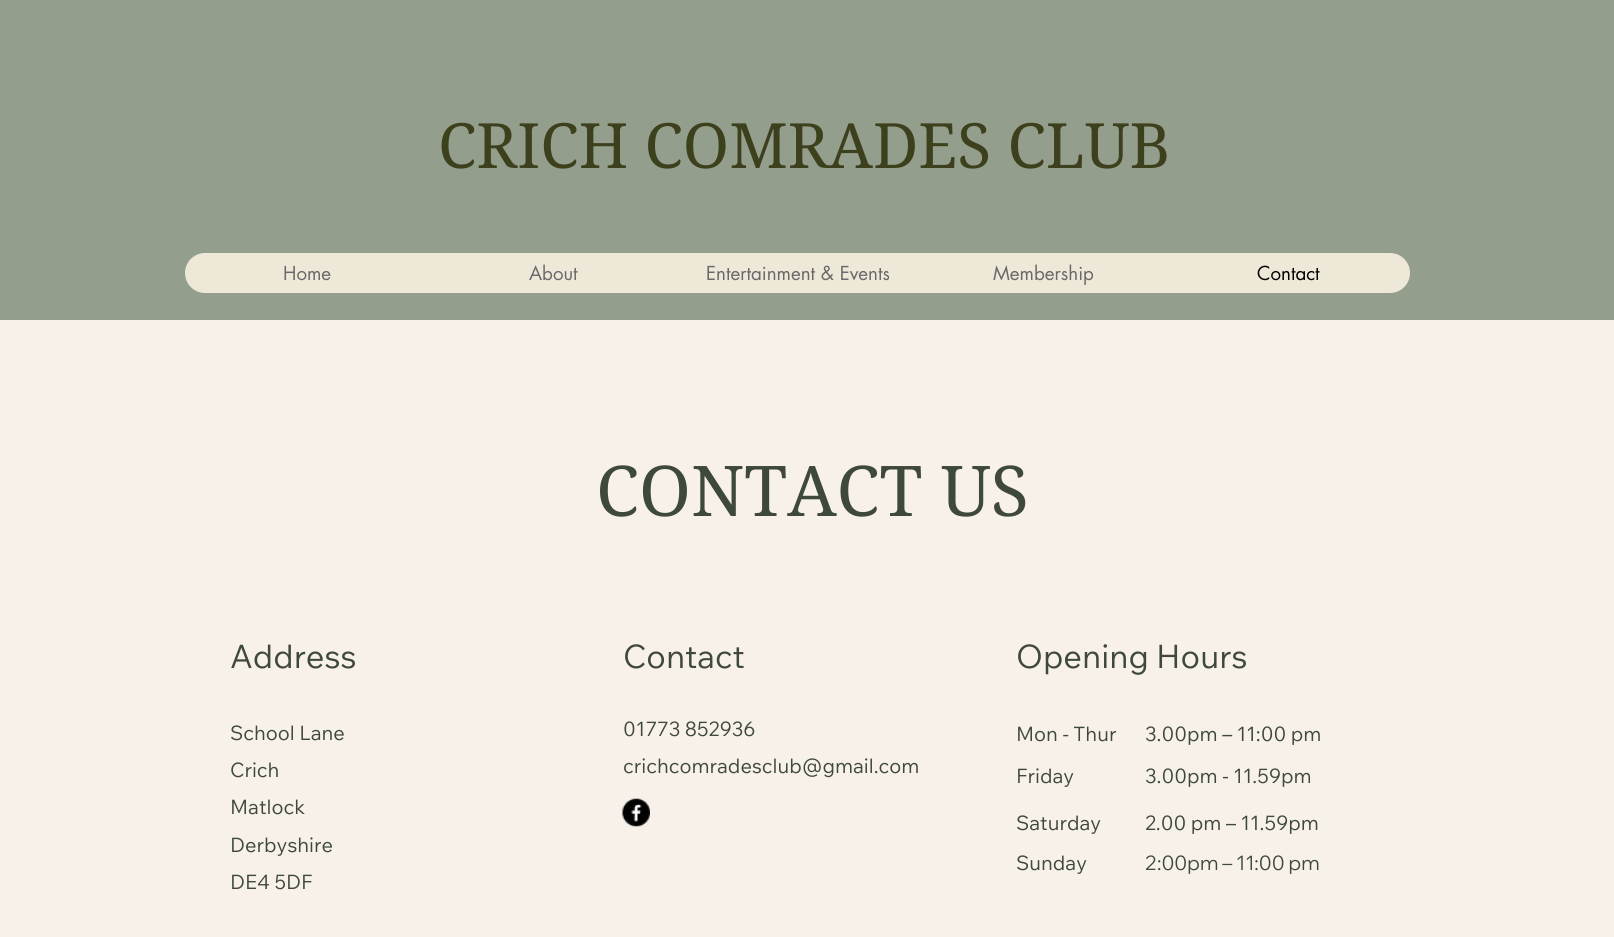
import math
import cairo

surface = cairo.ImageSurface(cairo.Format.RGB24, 1614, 937)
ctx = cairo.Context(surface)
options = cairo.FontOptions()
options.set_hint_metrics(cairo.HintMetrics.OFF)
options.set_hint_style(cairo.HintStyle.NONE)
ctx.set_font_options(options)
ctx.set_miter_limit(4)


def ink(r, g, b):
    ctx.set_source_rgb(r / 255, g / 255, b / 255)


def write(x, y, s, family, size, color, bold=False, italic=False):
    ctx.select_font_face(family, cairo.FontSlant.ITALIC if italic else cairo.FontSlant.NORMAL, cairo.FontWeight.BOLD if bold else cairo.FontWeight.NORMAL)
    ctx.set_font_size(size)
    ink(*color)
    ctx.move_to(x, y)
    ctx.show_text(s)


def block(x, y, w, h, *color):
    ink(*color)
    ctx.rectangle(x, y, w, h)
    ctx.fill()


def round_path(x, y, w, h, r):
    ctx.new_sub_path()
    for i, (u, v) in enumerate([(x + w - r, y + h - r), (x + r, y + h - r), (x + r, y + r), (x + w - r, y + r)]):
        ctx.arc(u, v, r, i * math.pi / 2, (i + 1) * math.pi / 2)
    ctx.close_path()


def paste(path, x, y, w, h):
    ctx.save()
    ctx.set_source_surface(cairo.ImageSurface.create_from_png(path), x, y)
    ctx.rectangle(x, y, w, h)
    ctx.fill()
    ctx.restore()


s1 = dict(family="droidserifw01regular", size=62.5, color=(60, 64, 28))
s2 = dict(family="futura", size=18.75, color=(105, 105, 105))
s3 = dict(family="futura", size=18.75, color=(0, 0, 0))
s4 = dict(family="droidserifw01regular", size=70, color=(63, 73, 57))
s5 = dict(family="Wix Madefor Text", size=32.5, color=(63, 73, 57))
s6 = dict(family="Wix Madefor Text", size=20, color=(63, 73, 57))
s7 = dict(family="Wix Madefor Display", size=20, color=(63, 73, 57))

ink(147, 158, 140)
ctx.paint()
write(438, 168, "CRICH COMRADES CLUB", **s1)
ink(238, 232, 216)
round_path(185, 253, 1225, 40, 20)
ctx.fill()
write(283, 280, "Home", **s2)
write(529, 280, "About", **s2)
write(706, 280, "Entertainment & Events", **s2)
write(993, 280, "Membership", **s2)
write(1257, 280, "Contact", **s3)
block(0, 320, 1614, 617, 247, 241, 233)
write(596, 516, "CONTACT US", **s4)
write(230, 668, "Address", **s5)
write(623, 668, "Contact", **s5)
write(1016, 668, "Opening Hours", **s5)
write(230, 740, "School Lane", **s6)
write(230, 777, "Crich", **s6)
write(230, 814, "Matlock", **s6)
write(230, 852, "Derbyshire", **s6)
write(230, 889, "DE4 5DF", **s6)
write(623, 736, "01773 852936", **s6)
write(623, 773, "crichcomradesclub@gmail.com", **s6)
write(1016, 741, "Mon - Thur", **s6)
write(1145, 741, "3.00pm – 11:00 pm", **s6)
write(1016, 783, "Friday", **s6)
write(1145, 783, "3.00pm - 11.59pm", **s6)
paste("pic1.png", 622, 798, 28, 29)
write(1016, 830, "Saturday", **s6)
write(1145, 830, "2.00 pm – 11.59pm", **s6)
write(1016, 870, "Sunday", **s6)
write(1145, 870, "2:00pm – 11:00 pm", **s7)
surface.write_to_png("screenshot.png")
